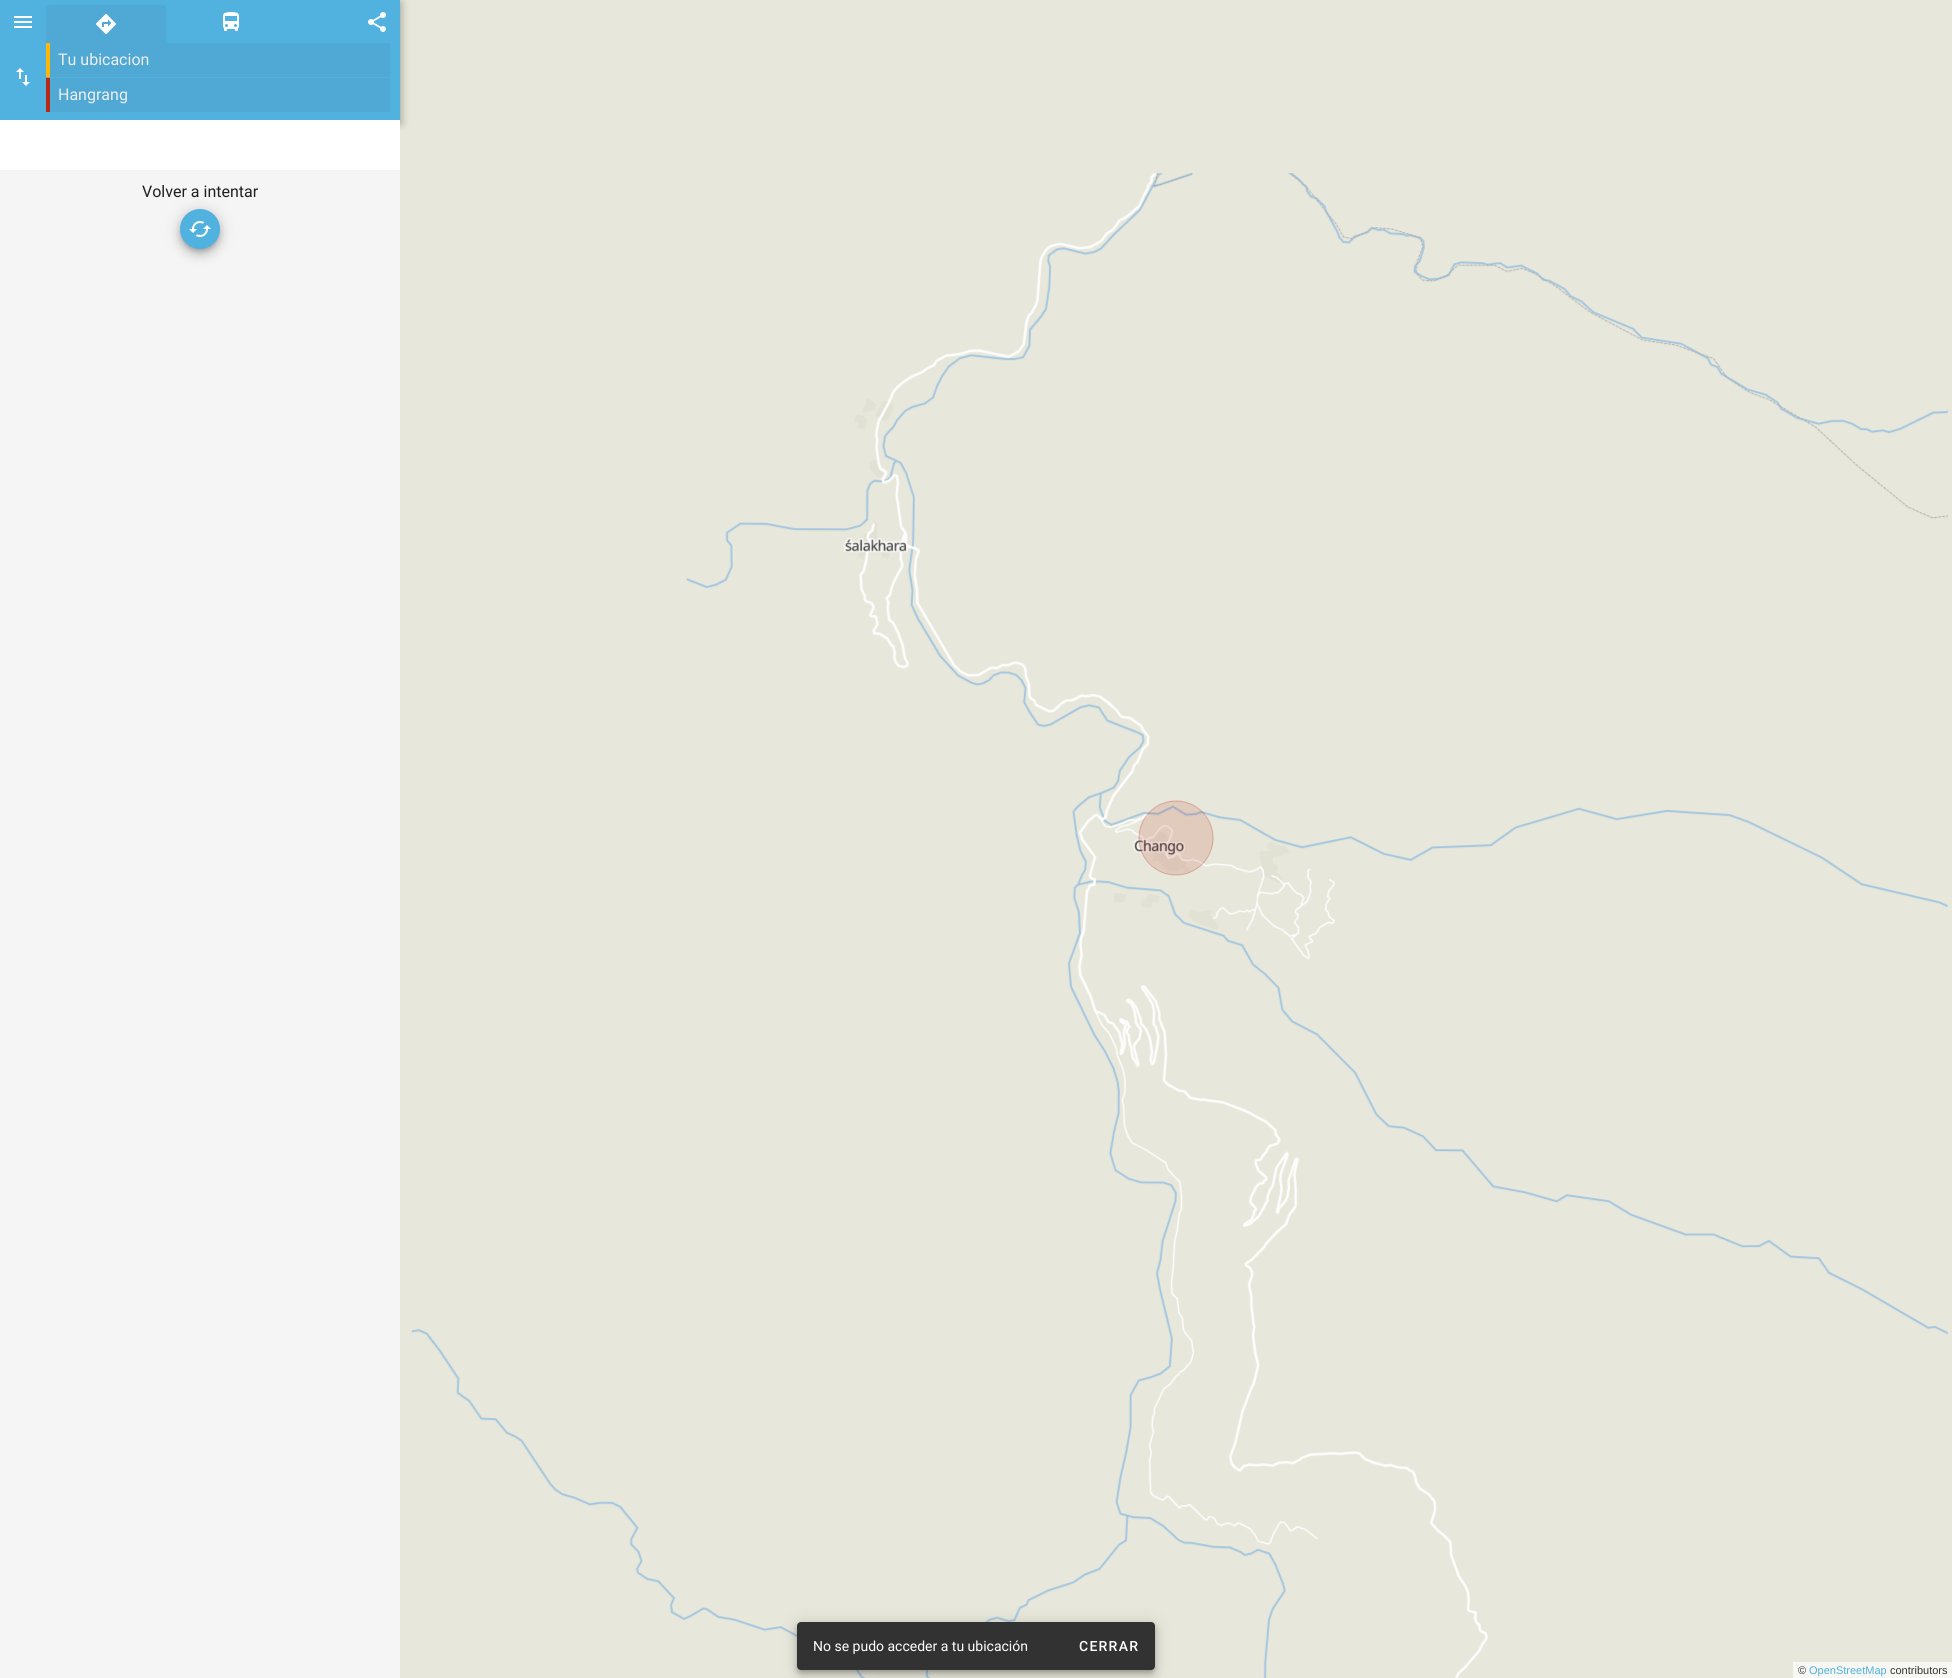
import math
import cairo

surface = cairo.ImageSurface(cairo.Format.RGB24, 1952, 1678)
ctx = cairo.Context(surface)
options = cairo.FontOptions()
options.set_hint_metrics(cairo.HintMetrics.OFF)
options.set_hint_style(cairo.HintStyle.NONE)
ctx.set_font_options(options)
ctx.set_miter_limit(4)


def ink(r, g, b):
    ctx.set_source_rgb(r / 255, g / 255, b / 255)


def write(x, y, s, family, size, color, bold=False, italic=False):
    ctx.select_font_face(family, cairo.FontSlant.ITALIC if italic else cairo.FontSlant.NORMAL, cairo.FontWeight.BOLD if bold else cairo.FontWeight.NORMAL)
    ctx.set_font_size(size)
    ink(*color)
    ctx.move_to(x, y)
    ctx.show_text(s)


def write_spaced(x, y, s, letter, word):
    ctx.move_to(x, y)
    for ch in s:
        ctx.show_text(ch)
        ctx.rel_move_to(letter + word * (ch == ' '), 0)


def block(x, y, w, h, *color):
    ink(*color)
    ctx.rectangle(x, y, w, h)
    ctx.fill()


def round_path(x, y, w, h, r):
    ctx.new_sub_path()
    for i, (u, v) in enumerate([(x + w - r, y + h - r), (x + r, y + h - r), (x + r, y + r), (x + w - r, y + r)]):
        ctx.arc(u, v, r, i * math.pi / 2, (i + 1) * math.pi / 2)
    ctx.close_path()


def blur_box(x, y, w, h, r, blur, alpha):
    ctx.push_group_with_content(cairo.Content.ALPHA)
    ctx.set_operator(cairo.Operator.SOURCE)
    for i in range(15, -16, -2):
        e = blur * i / 6
        if min(w, h) + 2 * e > 0:
            ctx.set_source_rgba(0, 0, 0, alpha * math.erfc((i - 1) / 8.5) / 2)
            round_path(x - e, y - e, w + 2 * e, h + 2 * e, max(0, min(r + e + blur * .6, min(w, h) / 2 + e)))
            ctx.fill()
    ctx.mask(ctx.pop_group())


def paste(path, x, y, w, h):
    ctx.save()
    ctx.set_source_surface(cairo.ImageSurface.create_from_png(path), x, y)
    ctx.rectangle(x, y, w, h)
    ctx.fill()
    ctx.restore()


s1 = dict(family="Roboto", size=16, color=(238, 238, 238))
s2 = dict(family="Roboto", size=16, color=(32, 32, 32))
s3 = dict(family="Liberation Sans", size=11, color=(51, 51, 51))
s4 = dict(family="Liberation Sans", size=11, color=(81, 178, 224))
s5 = dict(family="Roboto", size=14, color=(255, 255, 255))

ink(245, 245, 245)
ctx.paint()
paste("pic7.png", 400, 0, 1552, 1678)
ink(0, 0, 0)
blur_box(0, 3, 400, 120, 0, 5, 0.23)
blur_box(0, 3, 400, 120, 0, 5, 0.16)
block(0, 0, 400, 120, 81, 178, 224)
paste("pic1.png", 14, 16, 18, 12)
ink(79, 169, 212)
ctx.new_path()
ctx.move_to(50, 5)
ctx.line_to(162, 5)
ctx.curve_to(164, 5, 166, 7, 166, 9)
ctx.line_to(166, 43)
ctx.line_to(46, 43)
ctx.line_to(46, 9)
ctx.curve_to(46, 7, 48, 5, 50, 5)
ctx.close_path()
ctx.fill()
paste("pic2.png", 96, 14, 20, 20)
paste("pic3.png", 223, 12, 16, 19)
paste("pic4.png", 368, 12, 18, 20)
block(50, 43, 340, 34, 79, 169, 212)
block(46, 43, 4, 34, 255, 183, 3)
write(58, 65, "Tu ubicacion", **s1)
paste("pic5.png", 16, 68, 14, 18)
block(50, 78, 340, 34, 79, 169, 212)
block(46, 78, 4, 34, 183, 40, 21)
write(58, 100, "Hangrang", **s1)
block(0, 120, 400, 50, 255, 255, 255)
ink(0, 0, 0)
blur_box(180, 210, 40, 40, 20, 9, 0.12)
blur_box(180, 215, 40, 40, 20, 5, 0.14)
blur_box(181, 213, 38, 38, 19, 2.5, 0.2)
ink(81, 178, 224)
ctx.arc(200, 229, 20, 0, 2 * math.pi)
ctx.fill()
paste("pic6.png", 189, 221, 22, 16)
write(142, 197, "Volver a intentar", **s2)
ctx.set_source_rgba(0.718, 0.157, 0.082, 0.15)
ctx.set_fill_rule(cairo.FillRule.EVEN_ODD)
ctx.new_path()
ctx.move_to(1139, 838)
ctx.curve_to(1139, 858, 1156, 875, 1176, 875)
ctx.curve_to(1196, 875, 1213, 858, 1213, 838)
ctx.curve_to(1213, 818, 1196, 801, 1176, 801)
ctx.curve_to(1156, 801, 1139, 818, 1139, 838)
ctx.fill()
ctx.new_path()
ctx.move_to(1139, 838)
ctx.curve_to(1139, 858.5, 1155.5, 875, 1176, 875)
ctx.curve_to(1196.5, 875, 1213, 858.5, 1213, 838)
ctx.curve_to(1213, 817.5, 1196.5, 801, 1176, 801)
ctx.curve_to(1155.5, 801, 1139, 817.5, 1139, 838)
ctx.set_source_rgba(0.718, 0.157, 0.082, 0.3)
ctx.set_line_width(1)
ctx.set_line_cap(cairo.LineCap.ROUND)
ctx.set_line_join(cairo.LineJoin.ROUND)
ctx.stroke()
block(1793, 1662, 159, 16, 247, 247, 243)
write(1798, 1674, "©", **s3)
write(1809, 1674, "OpenStreetMap", **s4)
write(1890, 1674, "contributors", **s3)
ink(0, 0, 0)
blur_box(797, 1623, 358, 48, 4, 9, 0.12)
blur_box(797, 1628, 358, 48, 4, 5, 0.14)
blur_box(798, 1626, 356, 46, 3, 2.5, 0.2)
ink(50, 50, 50)
round_path(797, 1622, 358, 48, 4)
ctx.fill()
write(813, 1651, "No se pudo acceder a tu ubicación", **s5)
ctx.select_font_face("Roboto Medium")
write_spaced(1079, 1651, "CERRAR", 1.25, 0)
surface.write_to_png("screenshot.png")
